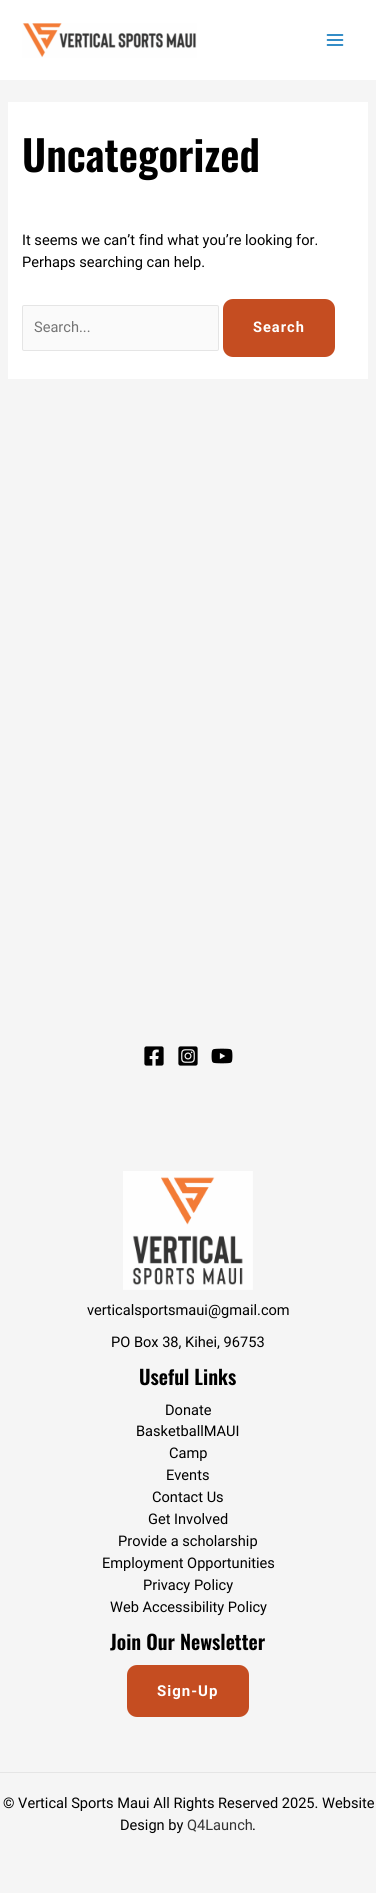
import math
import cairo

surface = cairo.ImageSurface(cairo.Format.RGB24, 376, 1893)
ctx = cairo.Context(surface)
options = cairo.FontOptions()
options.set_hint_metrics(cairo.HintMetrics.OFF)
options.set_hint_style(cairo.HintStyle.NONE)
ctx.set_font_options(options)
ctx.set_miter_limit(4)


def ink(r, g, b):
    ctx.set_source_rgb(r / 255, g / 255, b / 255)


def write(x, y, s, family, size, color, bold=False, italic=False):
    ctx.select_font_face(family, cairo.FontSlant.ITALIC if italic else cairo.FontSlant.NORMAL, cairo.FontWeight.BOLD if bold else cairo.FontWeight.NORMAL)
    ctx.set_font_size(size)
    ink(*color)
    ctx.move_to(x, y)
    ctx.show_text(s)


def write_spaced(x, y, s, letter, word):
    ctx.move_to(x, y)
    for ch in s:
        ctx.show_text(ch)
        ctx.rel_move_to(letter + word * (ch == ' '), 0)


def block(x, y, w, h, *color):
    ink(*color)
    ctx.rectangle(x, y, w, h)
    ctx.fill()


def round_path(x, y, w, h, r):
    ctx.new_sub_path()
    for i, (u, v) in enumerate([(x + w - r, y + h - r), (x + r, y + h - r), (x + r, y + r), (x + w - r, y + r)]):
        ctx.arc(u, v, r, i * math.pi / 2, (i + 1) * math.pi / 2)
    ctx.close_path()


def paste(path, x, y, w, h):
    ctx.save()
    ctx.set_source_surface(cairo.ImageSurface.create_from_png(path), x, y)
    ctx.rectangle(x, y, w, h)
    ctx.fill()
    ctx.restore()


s1 = dict(family="Oswald SemiBold", size=41.75, color=(0, 0, 0))
s2 = dict(family="Roboto", size=14.6, color=(0, 0, 0))
s3 = dict(family="Roboto", size=14.6, color=(117, 117, 117))
s4 = dict(family="Oswald SemiBold", size=20, color=(0, 0, 0))
s5 = dict(family="Roboto", size=14.6, color=(51, 51, 51))

ink(245, 245, 245)
ctx.paint()
block(0, 0, 376, 80, 255, 255, 255)
paste("pic1.png", 22, 23, 175, 35)
paste("pic2.png", 326, 34, 18, 12)
block(8, 102, 360, 277, 255, 255, 255)
write(22, 172, "Uncategorized", **s1)
write(22, 245, "It seems we can’t find what you’re looking for.", **s2)
write(22, 267, "Perhaps searching can help.", **s2)
ink(250, 250, 250)
round_path(22.5, 305.5, 196, 45, 1.5)
ctx.fill_preserve()
ink(229, 229, 229)
ctx.set_line_width(1)
ctx.stroke()
write(34, 332, "Search...", **s3)
ink(197, 77, 33)
round_path(223, 299, 112, 58, 10)
ctx.fill()
ctx.select_font_face("Roboto", cairo.FontSlant.NORMAL, cairo.FontWeight.BOLD)
ink(255, 255, 255)
write_spaced(253, 332, "Search", 1, 0)
paste("pic3.png", 144, 1046, 20, 20)
paste("pic4.png", 178, 1046, 20, 20)
paste("pic5.png", 211, 1048, 22, 16)
paste("pic6.png", 123, 1171, 130, 119)
write(87, 1315, "verticalsportsmaui@gmail.com", **s2)
write(111, 1347, "PO Box 38, Kihei, 96753", **s2)
write(139, 1385, "Useful Links", **s4)
write(165, 1415, "Donate", **s2)
write(136, 1436, "BasketballMAUI", **s2)
write(169, 1458, "Camp", **s2)
write(166, 1480, "Events", **s2)
write(152, 1502, "Contact Us", **s2)
write(148, 1524, "Get Involved", **s2)
write(118, 1546, "Provide a scholarship", **s2)
write(102, 1568, "Employment Opportunities", **s2)
write(143, 1590, "Privacy Policy", **s2)
write(110, 1612, "Web Accessibility Policy", **s2)
write(110, 1650, "Join Our Newsletter", **s4)
ink(197, 77, 33)
round_path(127, 1665, 122, 52, 10)
ctx.fill()
ctx.select_font_face("Roboto", cairo.FontSlant.NORMAL, cairo.FontWeight.BOLD)
ctx.set_font_size(15)
ink(255, 255, 255)
write_spaced(157, 1696, "Sign-Up", 1, 0)
block(0, 1772, 376, 1, 229, 229, 229)
write(3, 1808, "© Vertical Sports Maui All Rights Reserved 2025. Website", **s2)
write(120, 1830, "Design by", **s2)
write(187, 1830, "Q4Launch", **s5)
write(252, 1830, ".", **s2)
surface.write_to_png("screenshot.png")
